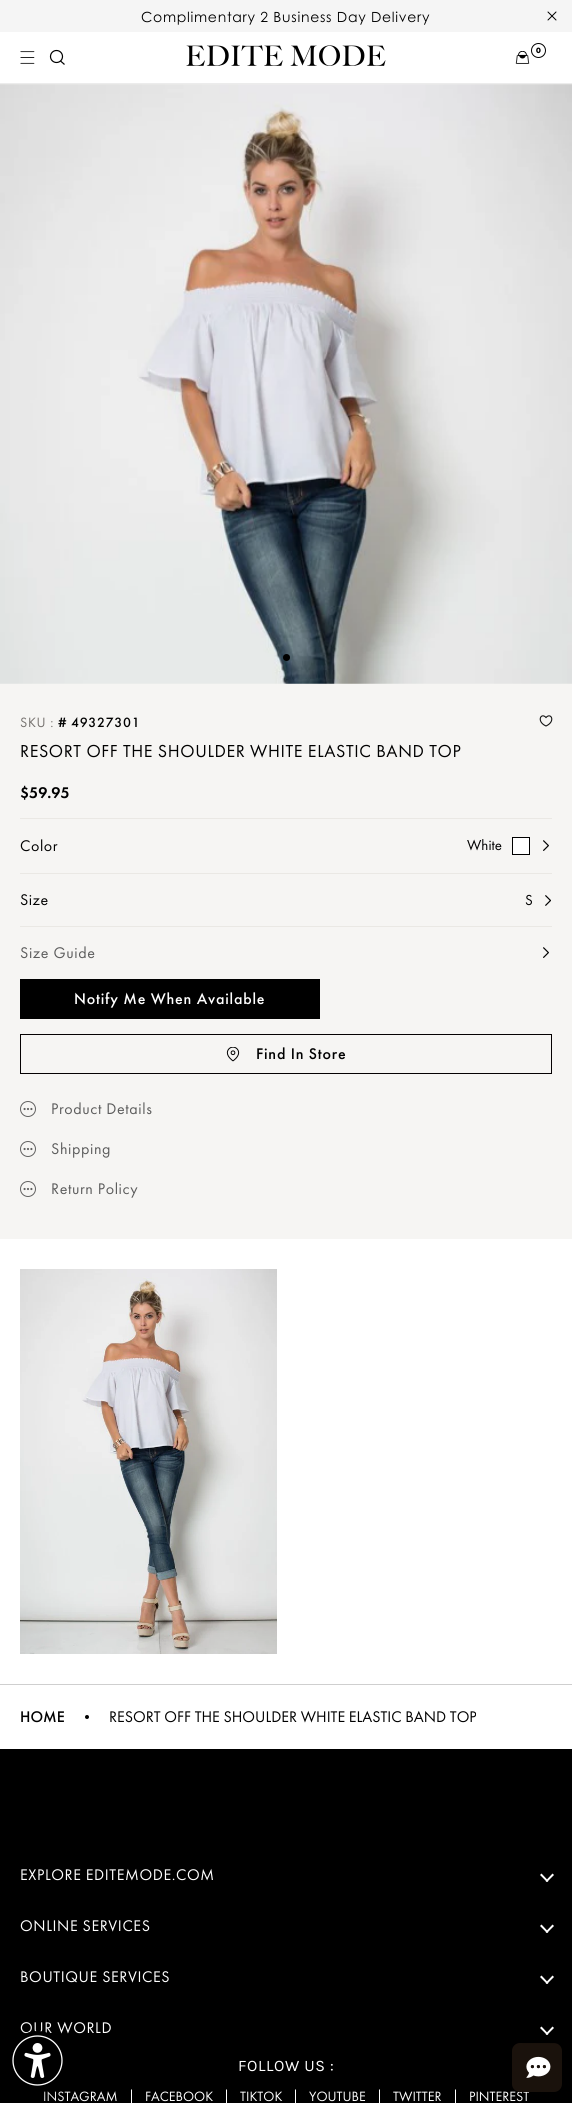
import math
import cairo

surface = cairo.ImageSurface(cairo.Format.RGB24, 572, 2103)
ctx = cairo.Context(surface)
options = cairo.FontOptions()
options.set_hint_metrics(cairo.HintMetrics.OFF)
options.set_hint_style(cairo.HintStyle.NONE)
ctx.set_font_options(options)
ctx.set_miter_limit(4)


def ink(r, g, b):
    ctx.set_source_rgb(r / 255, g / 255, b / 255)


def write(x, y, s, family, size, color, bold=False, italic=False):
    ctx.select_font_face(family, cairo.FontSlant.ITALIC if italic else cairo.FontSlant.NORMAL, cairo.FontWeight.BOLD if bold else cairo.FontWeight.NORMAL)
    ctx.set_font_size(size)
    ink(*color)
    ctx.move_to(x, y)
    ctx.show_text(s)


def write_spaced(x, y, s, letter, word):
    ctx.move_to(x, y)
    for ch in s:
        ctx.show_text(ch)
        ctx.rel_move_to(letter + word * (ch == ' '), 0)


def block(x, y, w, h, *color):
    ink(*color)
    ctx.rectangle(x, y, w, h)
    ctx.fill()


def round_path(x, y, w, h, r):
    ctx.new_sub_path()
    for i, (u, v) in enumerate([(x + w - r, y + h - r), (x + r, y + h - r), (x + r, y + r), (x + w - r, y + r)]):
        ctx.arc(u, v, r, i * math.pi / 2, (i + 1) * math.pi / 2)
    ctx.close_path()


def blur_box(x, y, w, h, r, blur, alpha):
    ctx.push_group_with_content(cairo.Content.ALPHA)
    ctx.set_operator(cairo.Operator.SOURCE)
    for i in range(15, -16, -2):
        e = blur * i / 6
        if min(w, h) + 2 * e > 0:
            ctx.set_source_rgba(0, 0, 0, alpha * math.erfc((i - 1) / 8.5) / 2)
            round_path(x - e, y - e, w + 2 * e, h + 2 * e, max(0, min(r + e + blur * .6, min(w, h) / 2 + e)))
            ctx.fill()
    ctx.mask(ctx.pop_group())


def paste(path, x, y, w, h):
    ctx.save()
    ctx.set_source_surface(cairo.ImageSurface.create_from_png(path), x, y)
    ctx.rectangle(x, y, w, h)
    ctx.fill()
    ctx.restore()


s1 = dict(family="Futura PT", size=8, color=(0, 0, 0), bold=True)
s2 = dict(family="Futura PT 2 Medium", size=16, color=(0, 0, 0))
s3 = dict(family="Futura PT", size=15, color=(0, 0, 0))
s4 = dict(family="Futura PT Medium", size=16, color=(0, 0, 0))
s5 = dict(family="Futura PT", size=16, color=(0, 0, 0))
s6 = dict(family="Futura PT", size=14, color=(255, 255, 255))

ink(255, 255, 255)
ctx.paint()
block(0, 0, 572, 32, 245, 245, 245)
ctx.select_font_face("Century Gothic")
ctx.set_font_size(14)
ink(0, 0, 0)
write_spaced(141, 22, "Complimentary 2 Business Day Delivery", 0.7, 0)
paste("pic1.png", 547, 11, 10, 10)
block(0, 83, 572, 1, 236, 236, 236)
paste("pic2.png", 20, 51, 15, 13)
ctx.arc(56.5, 56.5, 6, 0, 2 * math.pi)
ink(0, 0, 0)
ctx.set_line_width(1.2)
ctx.stroke()
ctx.new_path()
ctx.move_to(60.5, 61)
ctx.line_to(64.5, 64.5)
ctx.stroke()
paste("pic3.png", 186, 45, 200, 21)
paste("pic4.png", 515, 51, 15, 13)
ctx.arc(538.5, 50.5, 7, 0, 2 * math.pi)
ctx.set_line_width(1)
ctx.stroke()
write(536, 53, "0", **s1)
block(0, 84, 572, 1155, 246, 245, 243)
paste("pic5.png", 0, 84, 572, 600)
ink(0, 0, 0)
ctx.arc(286.5, 657.5, 3.5, 0, 2 * math.pi)
ctx.fill()
ctx.select_font_face("Futura PT")
ctx.set_font_size(14)
ink(116, 112, 109)
write_spaced(20, 727, "SKU :", 0.7, 0)
ctx.select_font_face("Futura PT Medium")
ink(0, 0, 0)
write_spaced(58, 727, "# 49327301", 0.7, 0)
ctx.new_path()
ctx.move_to(546, 726)
ctx.curve_to(536, 721.5, 541, 712, 546, 717.5)
ctx.curve_to(551, 712, 556, 721.5, 546, 726)
ctx.close_path()
ink(18, 18, 18)
ctx.set_line_width(1.1)
ctx.stroke()
ctx.select_font_face("Futura PT")
ctx.set_font_size(18)
ink(0, 0, 0)
write_spaced(20, 757, "RESORT OFF THE SHOULDER WHITE ELASTIC BAND TOP", 0.6, 0)
write(20, 798, "$59.95", **s2)
block(20, 818, 532, 1, 234, 232, 228)
ctx.select_font_face("Futura PT")
ink(0, 0, 0)
write_spaced(20, 851, "Color", 0.6, 0)
write(467, 850, "White", **s3)
ctx.rectangle(512.5, 837.5, 17, 17)
ctx.set_line_width(1)
ctx.stroke()
block(513, 838, 16, 16, 255, 255, 255)
paste("pic6.png", 543, 840, 6, 11)
block(20, 873, 532, 1, 234, 232, 228)
ctx.set_font_size(16)
ink(0, 0, 0)
write_spaced(20, 905, "Size", 0.5, 0)
write(525, 905, "S", **s3)
paste("pic7.png", 545, 895, 6, 11)
block(20, 926, 532, 1, 234, 232, 228)
ctx.set_font_size(16)
ink(92, 92, 92)
write_spaced(20, 958, "Size Guide", 0.6, 0)
paste("pic6.png", 543, 947, 6, 11)
block(20, 979, 300, 40, 0, 0, 0)
ctx.select_font_face("Futura PT Medium")
ink(255, 255, 255)
write_spaced(74, 1004, "Notify Me When Available", 0.8, 0)
ctx.rectangle(20.5, 1034.5, 531, 39)
ink(5, 1, 2)
ctx.stroke()
paste("pic8.png", 226, 1047, 14, 15)
ink(0, 0, 0)
write_spaced(256, 1059, "Find In Store", 0.8, 0)
paste("pic9.png", 20, 1101, 16, 16)
ctx.select_font_face("Futura PT")
ink(92, 92, 92)
write_spaced(51, 1114, "Product Details", 0.6, 0)
paste("pic9.png", 20, 1141, 16, 16)
write_spaced(51, 1154, "Shipping", 0.6, 0)
paste("pic9.png", 20, 1181, 16, 16)
write_spaced(51, 1194, "Return Policy", 0.6, 0)
paste("pic10.png", 20, 1269, 257, 385)
block(0, 1684, 572, 1, 207, 207, 207)
write(20, 1722, "HOME", **s4)
ctx.new_path()
ctx.arc(87, 1717, 2, 0, 2 * math.pi)
ctx.fill()
write(109, 1722, "RESORT OFF THE SHOULDER WHITE ELASTIC BAND TOP", **s5)
block(0, 1749, 572, 354, 0, 0, 0)
ink(255, 255, 255)
write_spaced(20, 1880, "EXPLORE EDITEMODE.COM", 0.6, 0)
ctx.new_path()
ctx.move_to(552.5, 1873.5)
ctx.line_to(554, 1875)
ctx.line_to(547, 1882)
ctx.line_to(545.5, 1881)
ctx.close_path()
ctx.fill()
ctx.new_path()
ctx.move_to(541.5, 1873.5)
ctx.line_to(548.5, 1881)
ctx.line_to(547, 1882)
ctx.line_to(540, 1875)
ctx.close_path()
ctx.fill()
write_spaced(20, 1931, "ONLINE SERVICES", 0.6, 0)
ctx.new_path()
ctx.move_to(552.5, 1924.5)
ctx.line_to(554, 1926)
ctx.line_to(547, 1933)
ctx.line_to(545.5, 1932)
ctx.close_path()
ctx.fill()
ctx.new_path()
ctx.move_to(541.5, 1924.5)
ctx.line_to(548.5, 1932)
ctx.line_to(547, 1933)
ctx.line_to(540, 1926)
ctx.close_path()
ctx.fill()
write_spaced(20, 1982, "BOUTIQUE SERVICES", 0.6, 0)
ctx.new_path()
ctx.move_to(552.5, 1975.5)
ctx.line_to(554, 1977)
ctx.line_to(547, 1984)
ctx.line_to(545.5, 1983)
ctx.close_path()
ctx.fill()
ctx.new_path()
ctx.move_to(541.5, 1975.5)
ctx.line_to(548.5, 1983)
ctx.line_to(547, 1984)
ctx.line_to(540, 1977)
ctx.close_path()
ctx.fill()
write_spaced(20, 2033, "OUR WORLD", 0.6, 0)
ctx.new_path()
ctx.move_to(552.5, 2026.5)
ctx.line_to(554, 2028)
ctx.line_to(547, 2035)
ctx.line_to(545.5, 2034)
ctx.close_path()
ctx.fill()
ctx.new_path()
ctx.move_to(541.5, 2026.5)
ctx.line_to(548.5, 2034)
ctx.line_to(547, 2035)
ctx.line_to(540, 2028)
ctx.close_path()
ctx.fill()
ctx.select_font_face("Karla")
write_spaced(238, 2071, "FOLLOW US :", 0.6, 0)
write(43, 2101, "INSTAGRAM", **s6)
write(128, 2100, "|", **s6)
write(145, 2101, "FACEBOOK", **s6)
write(223, 2100, "|", **s6)
write(240, 2101, "TIKTOK", **s6)
write(292, 2100, "|", **s6)
write(309, 2101, "YOUTUBE", **s6)
write(376, 2100, "|", **s6)
write(393, 2101, "TWITTER", **s6)
write(452, 2100, "|", **s6)
write(469, 2101, "PINTEREST", **s6)
paste("pic11.png", 512, 2043, 50, 49)
ctx.save()
ctx.set_fill_rule(cairo.FillRule.EVEN_ODD)
ctx.new_path()
ctx.move_to(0, 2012)
ctx.line_to(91, 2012)
ctx.line_to(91, 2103)
ctx.line_to(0, 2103)
ctx.close_path()
ctx.move_to(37.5, 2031)
ctx.curve_to(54, 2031, 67, 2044, 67, 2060.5)
ctx.curve_to(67, 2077, 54, 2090, 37.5, 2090)
ctx.curve_to(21, 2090, 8, 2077, 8, 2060.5)
ctx.curve_to(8, 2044, 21, 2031, 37.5, 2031)
ctx.close_path()
ctx.clip()
ink(0, 0, 0)
blur_box(8, 2036, 59, 59, 29.5, 7.5, 0.3)
ctx.restore()
paste("pic12.png", 12, 2031, 51, 55)
surface.write_to_png("screenshot.png")
